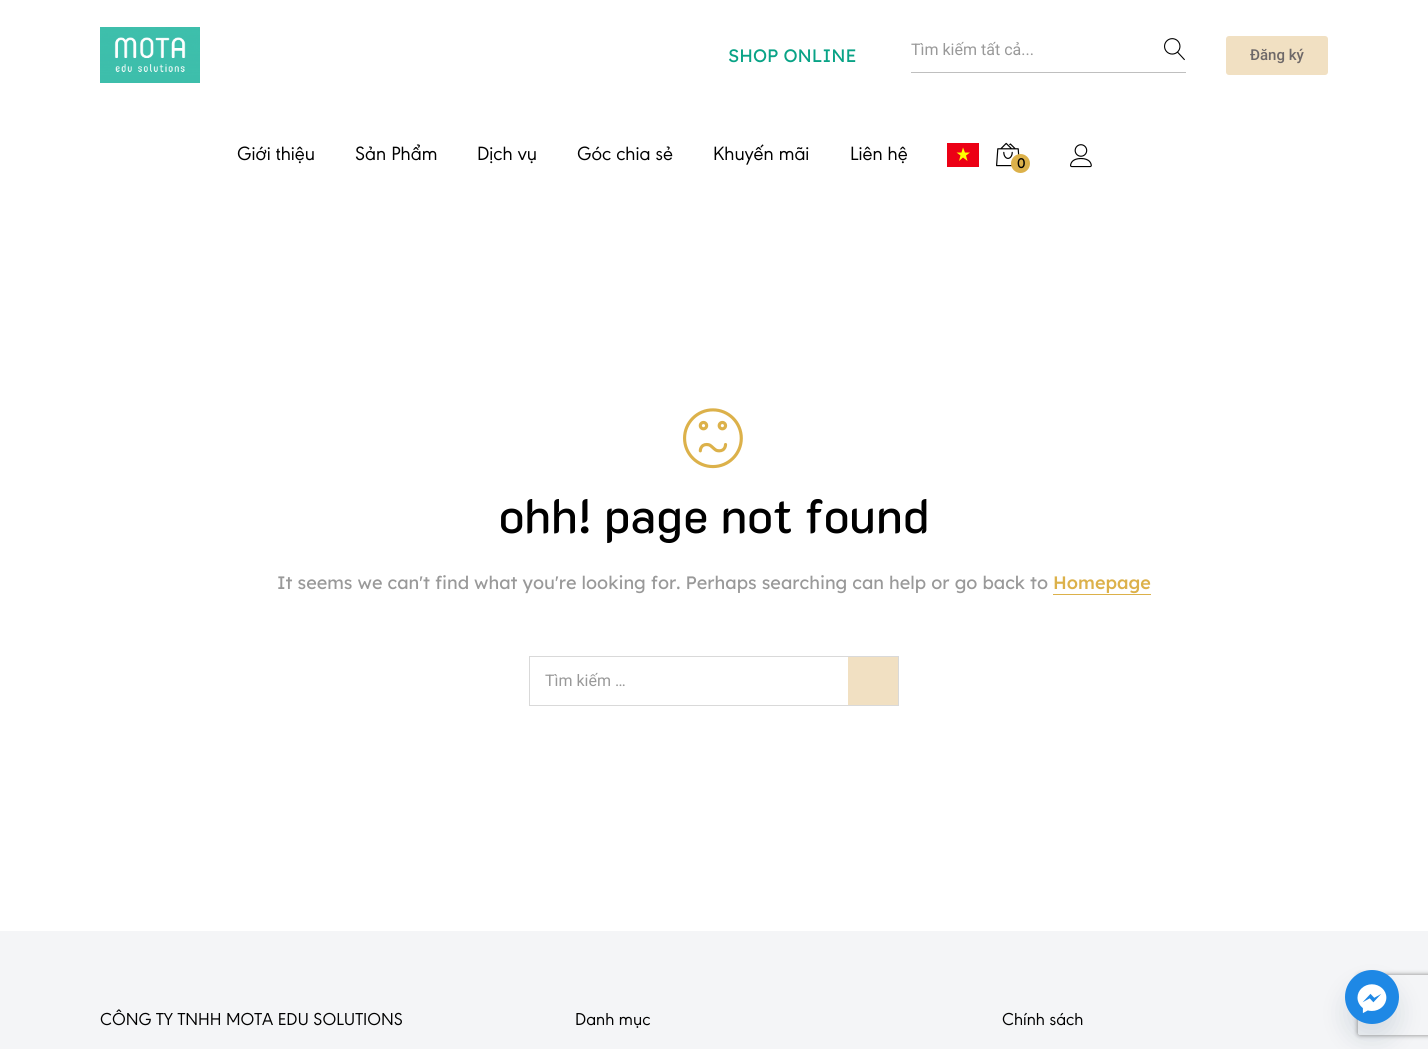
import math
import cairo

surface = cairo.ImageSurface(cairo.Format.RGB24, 1428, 1049)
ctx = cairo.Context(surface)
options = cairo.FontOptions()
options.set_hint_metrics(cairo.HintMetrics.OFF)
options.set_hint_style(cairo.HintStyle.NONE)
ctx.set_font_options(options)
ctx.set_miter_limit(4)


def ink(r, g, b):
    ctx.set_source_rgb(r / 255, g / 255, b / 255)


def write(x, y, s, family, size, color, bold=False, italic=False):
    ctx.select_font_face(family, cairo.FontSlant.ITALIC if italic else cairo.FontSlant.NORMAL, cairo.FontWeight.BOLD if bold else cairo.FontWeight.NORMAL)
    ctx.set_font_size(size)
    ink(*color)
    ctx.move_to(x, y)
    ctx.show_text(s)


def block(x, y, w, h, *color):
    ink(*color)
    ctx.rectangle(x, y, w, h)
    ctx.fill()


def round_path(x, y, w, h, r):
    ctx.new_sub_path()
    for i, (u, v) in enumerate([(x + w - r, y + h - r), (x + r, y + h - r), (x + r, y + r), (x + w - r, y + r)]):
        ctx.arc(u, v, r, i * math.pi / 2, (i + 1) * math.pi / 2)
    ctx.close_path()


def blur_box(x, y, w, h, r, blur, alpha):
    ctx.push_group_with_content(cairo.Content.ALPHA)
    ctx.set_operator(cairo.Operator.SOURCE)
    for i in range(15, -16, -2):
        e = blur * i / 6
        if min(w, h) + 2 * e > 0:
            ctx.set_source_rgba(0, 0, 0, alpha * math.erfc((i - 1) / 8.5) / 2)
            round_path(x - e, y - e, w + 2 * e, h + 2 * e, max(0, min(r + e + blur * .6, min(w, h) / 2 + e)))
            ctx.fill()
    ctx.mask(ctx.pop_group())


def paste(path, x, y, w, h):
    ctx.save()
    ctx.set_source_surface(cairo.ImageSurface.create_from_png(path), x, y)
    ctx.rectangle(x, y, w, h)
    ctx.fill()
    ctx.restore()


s1 = dict(family="Lexend", size=18, color=(9, 163, 134))
s2 = dict(family="Roboto", size=16, color=(153, 153, 153))
s3 = dict(family="Roboto Medium", size=15, color=(110, 104, 104))
s4 = dict(family="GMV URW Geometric", size=20, color=(0, 0, 0))
s5 = dict(family="Lexend", size=14, color=(0, 0, 0))
s6 = dict(family="K2D Medium", size=48, color=(0, 0, 0))
s7 = dict(family="Lexend", size=18, color=(153, 153, 153))
s8 = dict(family="Lexend Medium", size=18, color=(220, 177, 74))
s9 = dict(family="GMV URW Geometric", size=18, color=(0, 0, 0))

ink(255, 255, 255)
ctx.paint()
paste("pic1.png", 100, 27, 100, 56)
write(728, 62, "SHOP ONLINE", **s1)
block(911, 72, 275, 1, 191, 191, 191)
write(911, 55, "Tìm kiếm tất cả...", **s2)
paste("pic2.png", 1164, 38, 21, 23)
ink(241, 224, 194)
round_path(1226, 36, 102, 39, 3)
ctx.fill()
write(1250, 60, "Đăng ký", **s3)
write(237, 160, "Giới thiệu", **s4)
write(355, 160, "Sản Phẩm", **s4)
write(477, 160, "Dịch vụ", **s4)
write(577, 160, "Góc chia sẻ", **s4)
write(713, 160, "Khuyến mãi", **s4)
write(850, 160, "Liên hệ", **s4)
block(947, 143, 32, 24, 236, 0, 21)
ink(255, 255, 0)
ctx.set_fill_rule(cairo.FillRule.EVEN_ODD)
ctx.new_path()
ctx.move_to(967.5, 161)
ctx.line_to(963, 157.5)
ctx.line_to(959, 161)
ctx.line_to(960.5, 155.5)
ctx.line_to(956.5, 152.5)
ctx.line_to(961.5, 152.5)
ctx.line_to(963, 147.5)
ctx.line_to(965, 152.5)
ctx.line_to(970, 152.5)
ctx.line_to(966, 155.5)
ctx.close_path()
ctx.fill()
paste("pic3.png", 996, 142, 24, 25)
ink(220, 177, 74)
ctx.arc(1020.5, 163.5, 9.5, 0, 2 * math.pi)
ctx.fill()
write(1017, 168, "0", **s5)
paste("pic4.png", 1070, 144, 22, 24)
paste("pic5.png", 683, 408, 60, 61)
write(499, 533, "ohh! page not found", **s6)
write(277, 589, "It seems we can't find what you're looking for. Perhaps searching can help or go back to", **s7)
write(1053, 589, "Homepage", **s8)
block(1053, 594, 98, 1, 220, 177, 74)
block(529, 656, 370, 1, 217, 217, 217)
block(529, 705, 319, 1, 217, 217, 217)
block(529, 656, 1, 50, 217, 217, 217)
write(545, 686, "Tìm kiếm …", **s2)
block(848, 657, 50, 48, 241, 224, 194)
block(898, 656, 1, 50, 217, 217, 217)
block(848, 705, 51, 1, 217, 217, 217)
block(0, 931, 1428, 118, 244, 245, 247)
write(100, 1025, "CÔNG TY TNHH MOTA EDU SOLUTIONS", **s9)
write(575, 1025, "Danh mục", **s9)
write(1002, 1025, "Chính sách", **s9)
ink(73, 104, 126)
blur_box(1345, 986, 54, 54, 27, 12, 0.16)
ctx.save()
ctx.new_path()
ctx.move_to(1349, 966)
ctx.line_to(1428, 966)
ctx.line_to(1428, 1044)
ctx.line_to(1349, 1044)
ctx.close_path()
ctx.move_to(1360, 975)
ctx.line_to(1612, 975)
ctx.curve_to(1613, 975, 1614, 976, 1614, 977)
ctx.line_to(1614, 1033)
ctx.curve_to(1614, 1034, 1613, 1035, 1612, 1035)
ctx.line_to(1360, 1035)
ctx.curve_to(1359, 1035, 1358, 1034, 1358, 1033)
ctx.line_to(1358, 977)
ctx.curve_to(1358, 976, 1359, 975, 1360, 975)
ctx.close_path()
ctx.clip()
ink(128, 128, 128)
blur_box(1358, 975, 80, 60, 2, 2.5, 1)
ctx.restore()
paste("pic6.png", 1345, 970, 54, 54)
surface.write_to_png("screenshot.png")
